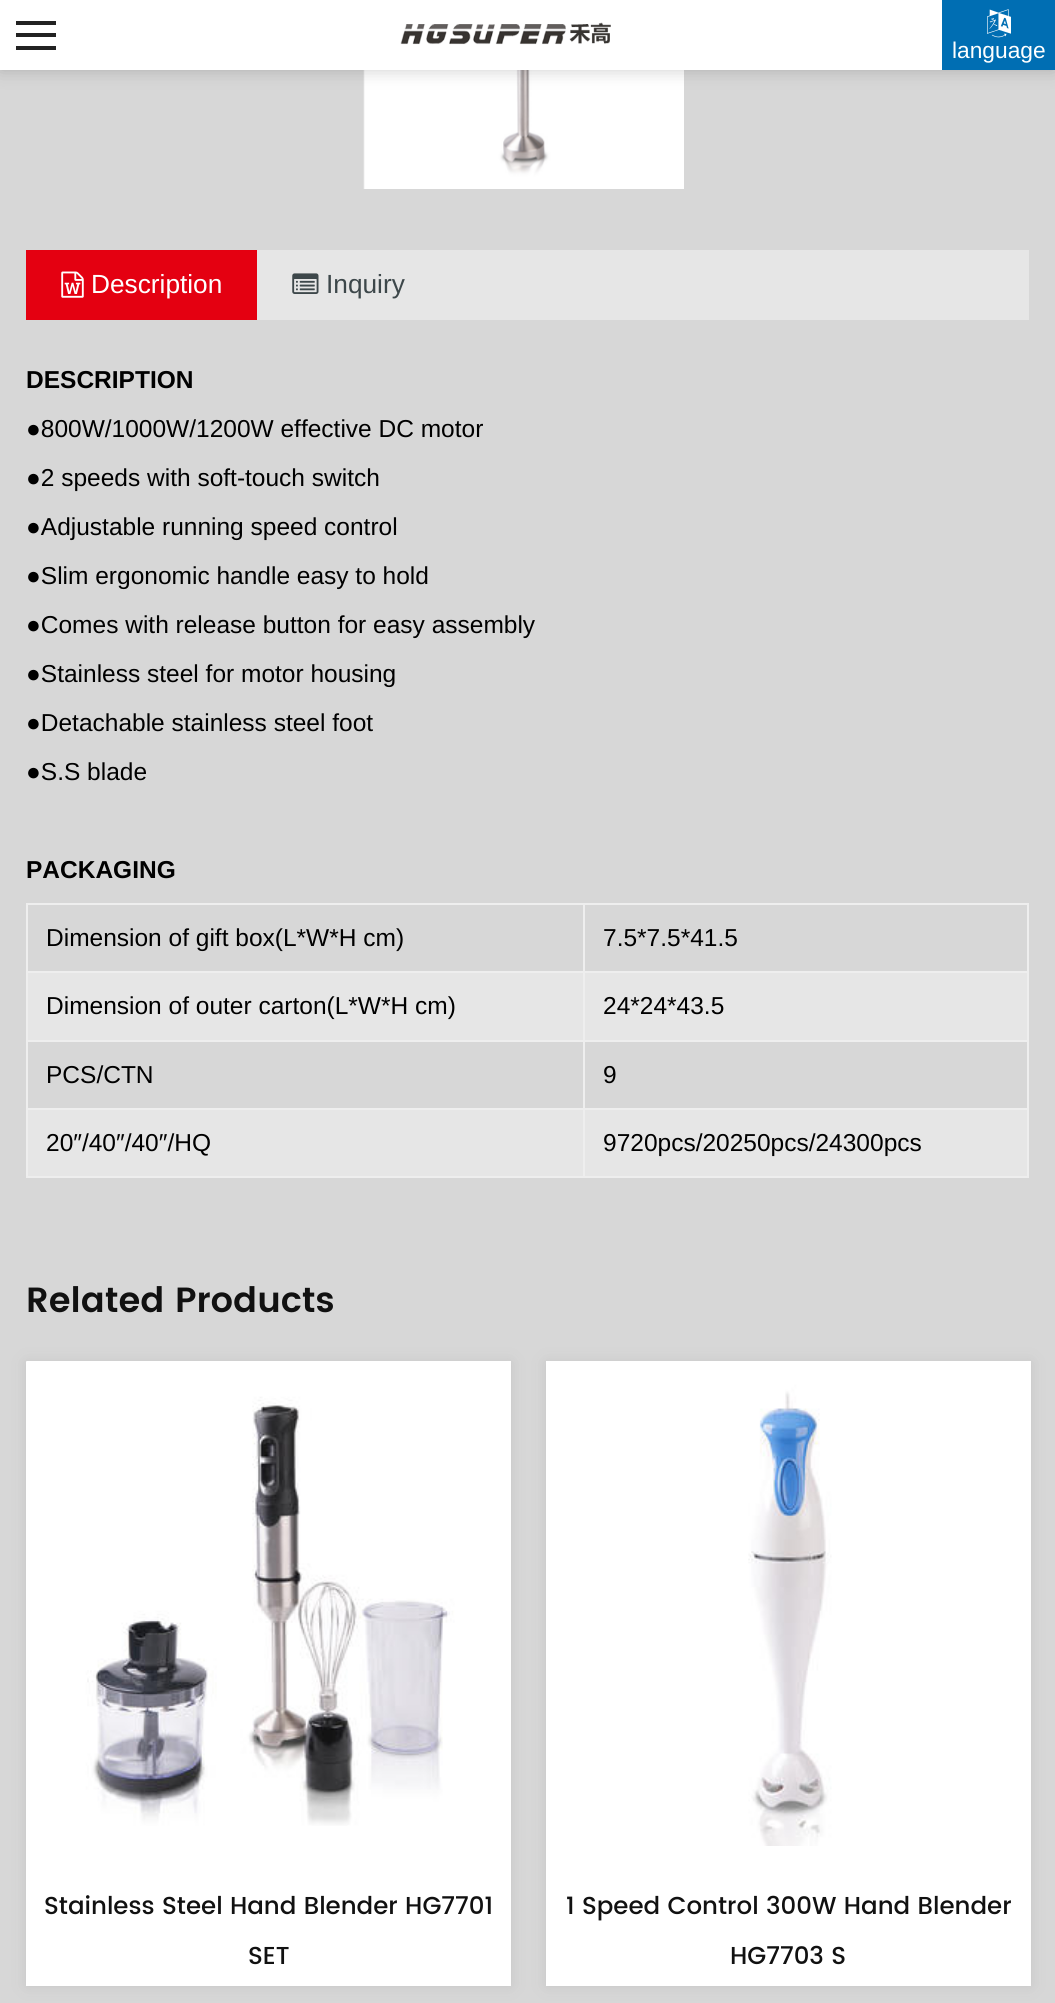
import math
import cairo

surface = cairo.ImageSurface(cairo.Format.RGB24, 1055, 2003)
ctx = cairo.Context(surface)
options = cairo.FontOptions()
options.set_hint_metrics(cairo.HintMetrics.OFF)
options.set_hint_style(cairo.HintStyle.NONE)
ctx.set_font_options(options)
ctx.set_miter_limit(4)


def ink(r, g, b):
    ctx.set_source_rgb(r / 255, g / 255, b / 255)


def write(x, y, s, family, size, color, bold=False, italic=False):
    ctx.select_font_face(family, cairo.FontSlant.ITALIC if italic else cairo.FontSlant.NORMAL, cairo.FontWeight.BOLD if bold else cairo.FontWeight.NORMAL)
    ctx.set_font_size(size)
    ink(*color)
    ctx.move_to(x, y)
    ctx.show_text(s)


def block(x, y, w, h, *color):
    ink(*color)
    ctx.rectangle(x, y, w, h)
    ctx.fill()


def round_path(x, y, w, h, r):
    ctx.new_sub_path()
    for i, (u, v) in enumerate([(x + w - r, y + h - r), (x + r, y + h - r), (x + r, y + r), (x + w - r, y + r)]):
        ctx.arc(u, v, r, i * math.pi / 2, (i + 1) * math.pi / 2)
    ctx.close_path()


def blur_box(x, y, w, h, r, blur, alpha):
    ctx.push_group_with_content(cairo.Content.ALPHA)
    ctx.set_operator(cairo.Operator.SOURCE)
    for i in range(15, -16, -2):
        e = blur * i / 6
        if min(w, h) + 2 * e > 0:
            ctx.set_source_rgba(0, 0, 0, alpha * math.erfc((i - 1) / 8.5) / 2)
            round_path(x - e, y - e, w + 2 * e, h + 2 * e, max(0, min(r + e + blur * .6, min(w, h) / 2 + e)))
            ctx.fill()
    ctx.mask(ctx.pop_group())


def paste(path, x, y, w, h):
    ctx.save()
    ctx.set_source_surface(cairo.ImageSurface.create_from_png(path), x, y)
    ctx.rectangle(x, y, w, h)
    ctx.fill()
    ctx.restore()


s1 = dict(family="Liberation Sans", size=22.75, color=(255, 255, 255))
s2 = dict(family="Liberation Sans", size=26.25, color=(255, 255, 255))
s3 = dict(family="Liberation Sans", size=26.25, color=(61, 71, 74))
s4 = dict(family="Liberation Sans", size=24.5, color=(0, 0, 0), bold=True)
s5 = dict(family="Liberation Sans", size=24.5, color=(0, 0, 0))
s6 = dict(family="Poppins SemiBold", size=35, color=(17, 17, 17))
s7 = dict(family="Poppins Medium", size=24.5, color=(17, 17, 17))

ink(215, 215, 215)
ctx.paint()
paste("pic3.png", 363, 70, 321, 119)
ink(0, 0, 0)
blur_box(0, 0, 1055, 70, 0, 9, 0.2)
block(0, 0, 942, 70, 255, 255, 255)
block(16, 21, 40, 4, 34, 34, 34)
block(16, 33, 40, 4, 34, 34, 34)
block(16, 46, 40, 4, 34, 34, 34)
paste("pic1.png", 400, 22, 211, 23)
block(942, 0, 113, 70, 0, 110, 179)
paste("pic2.png", 987, 9, 24, 29)
write(952, 58, "language", **s1)
block(257, 250, 772, 70, 230, 230, 230)
block(26, 250, 231, 70, 228, 0, 17)
paste("pic4.png", 61, 271, 23, 27)
write(91, 293, "Description", **s2)
paste("pic5.png", 292, 273, 27, 21)
write(326, 293, "Inquiry", **s3)
write(26, 388, "DESCRIPTION", **s4)
write(26, 437, "●800W/1000W/1200W effective DC motor", **s5)
write(26, 486, "●2 speeds with soft-touch switch", **s5)
write(26, 535, "●Adjustable running speed control", **s5)
write(26, 584, "●Slim ergonomic handle easy to hold", **s5)
write(26, 633, "●Comes with release button for easy assembly", **s5)
write(26, 682, "●Stainless steel for motor housing", **s5)
write(26, 731, "●Detachable stainless steel foot", **s5)
write(26, 780, "●S.S blade", **s5)
write(26, 878, "PACKAGING", **s4)
block(583, 903, 446, 2, 238, 238, 238)
block(583, 971, 446, 2, 238, 238, 238)
block(28, 973, 999, 67, 230, 230, 230)
block(583, 1040, 446, 2, 238, 238, 238)
block(583, 1108, 446, 2, 238, 238, 238)
block(28, 1110, 999, 66, 230, 230, 230)
block(1027, 1108, 2, 70, 238, 238, 238)
block(583, 1176, 446, 2, 238, 238, 238)
block(583, 1108, 2, 70, 238, 238, 238)
block(26, 1108, 559, 2, 238, 238, 238)
block(583, 1040, 2, 70, 238, 238, 238)
block(26, 1040, 559, 2, 238, 238, 238)
block(583, 971, 2, 70, 238, 238, 238)
block(26, 971, 559, 2, 238, 238, 238)
block(583, 903, 2, 70, 238, 238, 238)
block(26, 903, 559, 2, 238, 238, 238)
block(26, 1176, 559, 2, 238, 238, 238)
block(26, 1108, 2, 70, 238, 238, 238)
block(26, 1040, 2, 70, 238, 238, 238)
block(26, 971, 2, 70, 238, 238, 238)
block(26, 903, 2, 70, 238, 238, 238)
write(46, 946, "Dimension of gift box(L*W*H cm)", **s5)
block(1027, 1040, 2, 70, 238, 238, 238)
block(1027, 971, 2, 70, 238, 238, 238)
block(1027, 903, 2, 70, 238, 238, 238)
write(603, 946, "7.5*7.5*41.5", **s5)
write(46, 1014, "Dimension of outer carton(L*W*H cm)", **s5)
write(603, 1014, "24*24*43.5", **s5)
write(46, 1083, "PCS/CTN", **s5)
write(603, 1083, "9", **s5)
write(46, 1151, "20″/40″/40″/HQ", **s5)
write(603, 1151, "9720pcs/20250pcs/24300pcs", **s5)
write(26, 1312, "Related Products", **s6)
ink(125, 125, 125)
blur_box(26, 1362, 485, 624, 0, 7, 0.2)
block(26, 1362, 485, 624, 255, 255, 255)
paste("pic6.png", 26, 1361, 485, 465)
write(44, 1914, "Stainless Steel Hand Blender HG7701", **s7)
write(248, 1964, "SET", **s7)
ink(125, 125, 125)
blur_box(546, 1362, 485, 624, 0, 7, 0.2)
block(546, 1846, 485, 140, 255, 255, 255)
paste("pic7.png", 546, 1361, 485, 485)
write(566, 1914, "1 Speed Control 300W Hand Blender", **s7)
write(730, 1964, "HG7703 S", **s7)
surface.write_to_png("screenshot.png")
